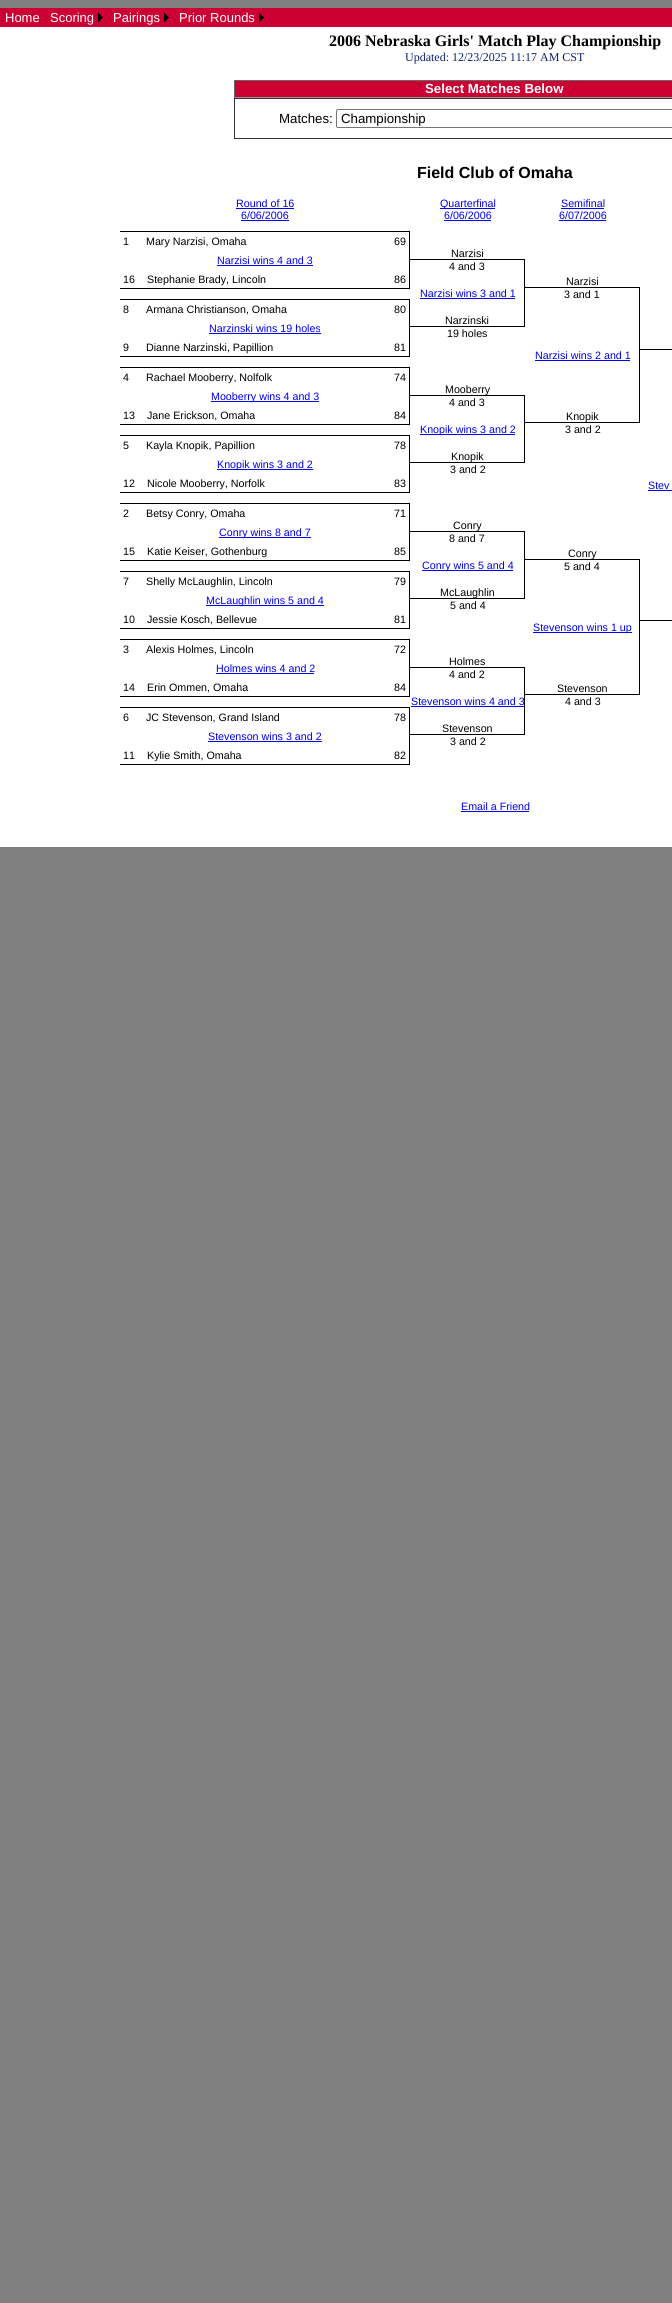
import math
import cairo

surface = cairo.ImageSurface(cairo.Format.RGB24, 672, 2303)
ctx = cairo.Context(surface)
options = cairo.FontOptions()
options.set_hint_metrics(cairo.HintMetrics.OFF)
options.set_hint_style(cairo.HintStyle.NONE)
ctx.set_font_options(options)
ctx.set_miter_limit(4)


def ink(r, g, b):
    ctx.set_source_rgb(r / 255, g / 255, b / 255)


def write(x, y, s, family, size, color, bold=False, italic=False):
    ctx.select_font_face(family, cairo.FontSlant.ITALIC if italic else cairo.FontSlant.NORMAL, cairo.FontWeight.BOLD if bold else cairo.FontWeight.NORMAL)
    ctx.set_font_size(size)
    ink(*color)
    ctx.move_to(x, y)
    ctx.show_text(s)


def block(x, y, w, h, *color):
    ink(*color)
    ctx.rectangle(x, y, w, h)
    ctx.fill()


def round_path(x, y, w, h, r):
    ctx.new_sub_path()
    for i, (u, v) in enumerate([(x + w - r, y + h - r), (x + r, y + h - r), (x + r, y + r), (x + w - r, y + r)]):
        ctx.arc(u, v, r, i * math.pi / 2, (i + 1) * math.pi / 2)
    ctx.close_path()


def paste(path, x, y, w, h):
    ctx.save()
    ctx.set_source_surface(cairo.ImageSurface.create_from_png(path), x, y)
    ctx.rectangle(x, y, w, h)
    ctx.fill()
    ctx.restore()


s1 = dict(family="Liberation Sans", size=13, color=(255, 255, 255))
s2 = dict(family="Liberation Serif", size=16, color=(0, 0, 0), bold=True)
s3 = dict(family="Liberation Serif", size=12, color=(14, 32, 127))
s4 = dict(family="Liberation Sans", size=13.25, color=(255, 255, 255), bold=True)
s5 = dict(family="Liberation Sans", size=13.25, color=(0, 0, 0))
s6 = dict(family="Liberation Sans", size=16, color=(0, 0, 0), bold=True)
s7 = dict(family="Liberation Sans", size=10.7, color=(0, 0, 238))
s8 = dict(family="Liberation Sans", size=10.7, color=(0, 0, 0))

ink(128, 128, 128)
ctx.paint()
block(0, 8, 672, 19, 204, 0, 51)
write(5, 22, "Home", **s1)
paste("pic1.png", 98, 13, 5, 9)
write(50, 22, "Scoring", **s1)
paste("pic1.png", 164, 13, 5, 9)
write(113, 22, "Pairings", **s1)
paste("pic1.png", 259, 13, 5, 9)
write(179, 22, "Prior Rounds", **s1)
block(0, 27, 672, 820, 255, 255, 255)
write(329, 46, "2006 Nebraska Girls' Match Play Championship", **s2)
write(405, 61, "Updated: 12/23/2025 11:17 AM CST", **s3)
block(235, 81, 437, 16, 204, 0, 51)
block(234, 80, 438, 1, 102, 102, 102)
block(234, 97, 438, 1, 153, 153, 153)
block(234, 80, 1, 18, 102, 102, 102)
write(425, 93, "Select Matches Below", **s4)
ctx.rectangle(234.5, 98.5, 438, 40)
ink(51, 51, 51)
ctx.set_line_width(1)
ctx.stroke()
write(279, 123, "Matches:", **s5)
round_path(336.5, 109.5, 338, 18, 1.5)
ink(118, 118, 118)
ctx.stroke()
write(341, 123, "Championship", **s5)
write(417, 178, "Field Club of Omaha", **s6)
write(236, 207, "Round of 16", **s7)
block(236, 208, 58, 1, 0, 0, 238)
write(241, 219, "6/06/2006", **s7)
block(241, 220, 48, 1, 0, 0, 238)
block(120, 231, 290, 1, 0, 0, 0)
block(409, 231, 1, 58, 0, 0, 0)
block(120, 288, 290, 1, 0, 0, 0)
write(123, 245, "1", **s8)
write(146, 245, "Mary Narzisi, Omaha", **s8)
write(394, 245, "69", **s8)
write(217, 264, "Narzisi wins 4 and 3", **s7)
block(217, 265, 96, 1, 0, 0, 238)
write(123, 283, "16", **s8)
write(147, 283, "Stephanie Brady, Lincoln", **s8)
write(394, 283, "86", **s8)
block(120, 299, 290, 1, 0, 0, 0)
block(409, 299, 1, 58, 0, 0, 0)
block(120, 356, 290, 1, 0, 0, 0)
write(123, 313, "8", **s8)
write(146, 313, "Armana Christianson, Omaha", **s8)
write(394, 313, "80", **s8)
write(209, 332, "Narzinski wins 19 holes", **s7)
block(209, 333, 112, 1, 0, 0, 238)
write(123, 351, "9", **s8)
write(146, 351, "Dianne Narzinski, Papillion", **s8)
write(394, 351, "81", **s8)
block(120, 367, 290, 1, 0, 0, 0)
block(409, 367, 1, 58, 0, 0, 0)
block(120, 424, 290, 1, 0, 0, 0)
write(123, 381, "4", **s8)
write(146, 381, "Rachael Mooberry, Nolfolk", **s8)
write(394, 381, "74", **s8)
block(211, 401, 108, 1, 0, 0, 238)
write(211, 400, "Mooberry wins 4 and 3", **s7)
write(123, 419, "13", **s8)
write(147, 419, "Jane Erickson, Omaha", **s8)
write(394, 419, "84", **s8)
block(120, 435, 290, 1, 0, 0, 0)
block(409, 435, 1, 58, 0, 0, 0)
block(120, 492, 290, 1, 0, 0, 0)
write(123, 449, "5", **s8)
write(146, 449, "Kayla Knopik, Papillion", **s8)
write(394, 449, "78", **s8)
block(217, 469, 96, 1, 0, 0, 238)
write(217, 468, "Knopik wins 3 and 2", **s7)
write(123, 487, "12", **s8)
write(147, 487, "Nicole Mooberry, Norfolk", **s8)
write(394, 487, "83", **s8)
block(120, 503, 290, 1, 0, 0, 0)
block(409, 503, 1, 58, 0, 0, 0)
block(120, 560, 290, 1, 0, 0, 0)
write(123, 517, "2", **s8)
write(146, 517, "Betsy Conry, Omaha", **s8)
write(394, 517, "71", **s8)
block(219, 537, 92, 1, 0, 0, 238)
write(219, 536, "Conry wins 8 and 7", **s7)
write(123, 555, "15", **s8)
write(147, 555, "Katie Keiser, Gothenburg", **s8)
write(394, 555, "85", **s8)
block(120, 571, 290, 1, 0, 0, 0)
block(409, 571, 1, 58, 0, 0, 0)
block(120, 628, 290, 1, 0, 0, 0)
write(123, 585, "7", **s8)
write(146, 585, "Shelly McLaughlin, Lincoln", **s8)
write(394, 585, "79", **s8)
block(206, 605, 118, 1, 0, 0, 238)
write(206, 604, "McLaughlin wins 5 and 4", **s7)
write(123, 623, "10", **s8)
write(147, 623, "Jessie Kosch, Bellevue", **s8)
write(394, 623, "81", **s8)
block(120, 639, 290, 1, 0, 0, 0)
block(409, 639, 1, 58, 0, 0, 0)
block(120, 696, 290, 1, 0, 0, 0)
write(123, 653, "3", **s8)
write(146, 653, "Alexis Holmes, Lincoln", **s8)
write(394, 653, "72", **s8)
write(216, 672, "Holmes wins 4 and 2", **s7)
block(216, 673, 98, 1, 0, 0, 238)
write(123, 691, "14", **s8)
write(147, 691, "Erin Ommen, Omaha", **s8)
write(394, 691, "84", **s8)
block(120, 707, 290, 1, 0, 0, 0)
block(409, 707, 1, 58, 0, 0, 0)
block(120, 764, 290, 1, 0, 0, 0)
write(123, 721, "6", **s8)
write(146, 721, "JC Stevenson, Grand Island", **s8)
write(394, 721, "78", **s8)
write(208, 740, "Stevenson wins 3 and 2", **s7)
block(208, 741, 114, 1, 0, 0, 238)
write(123, 759, "11", **s8)
write(147, 759, "Kylie Smith, Omaha", **s8)
write(394, 759, "82", **s8)
block(440, 208, 55, 1, 0, 0, 238)
write(440, 207, "Quarterfinal", **s7)
write(444, 219, "6/06/2006", **s7)
block(444, 220, 47, 1, 0, 0, 238)
write(451, 257, "Narzisi", **s8)
block(410, 259, 115, 1, 0, 0, 0)
block(524, 259, 1, 68, 0, 0, 0)
write(449, 270, "4 and 3", **s8)
write(420, 297, "Narzisi wins 3 and 1", **s7)
block(420, 298, 95, 1, 0, 0, 238)
block(410, 326, 115, 1, 0, 0, 0)
write(445, 324, "Narzinski", **s8)
write(447, 337, "19 holes", **s8)
write(445, 393, "Mooberry", **s8)
block(410, 395, 115, 1, 0, 0, 0)
block(524, 395, 1, 68, 0, 0, 0)
write(449, 406, "4 and 3", **s8)
block(420, 434, 95, 1, 0, 0, 238)
write(420, 433, "Knopik wins 3 and 2", **s7)
block(410, 462, 115, 1, 0, 0, 0)
write(451, 460, "Knopik", **s8)
write(450, 473, "3 and 2", **s8)
write(453, 529, "Conry", **s8)
block(410, 531, 115, 1, 0, 0, 0)
block(524, 531, 1, 68, 0, 0, 0)
write(449, 542, "8 and 7", **s8)
block(422, 570, 91, 1, 0, 0, 238)
write(422, 569, "Conry wins 5 and 4", **s7)
block(410, 598, 115, 1, 0, 0, 0)
write(440, 596, "McLaughlin", **s8)
write(450, 609, "5 and 4", **s8)
write(449, 665, "Holmes", **s8)
block(410, 667, 115, 1, 0, 0, 0)
block(524, 667, 1, 68, 0, 0, 0)
write(449, 678, "4 and 2", **s8)
write(411, 705, "Stevenson wins 4 and 3", **s7)
block(411, 706, 113, 1, 0, 0, 238)
block(410, 734, 115, 1, 0, 0, 0)
write(442, 732, "Stevenson", **s8)
write(450, 745, "3 and 2", **s8)
write(561, 207, "Semifinal", **s7)
block(561, 208, 43, 1, 0, 0, 238)
write(559, 219, "6/07/2006", **s7)
block(559, 220, 47, 1, 0, 0, 238)
write(566, 285, "Narzisi", **s8)
block(525, 287, 115, 1, 0, 0, 0)
block(639, 287, 1, 136, 0, 0, 0)
write(564, 298, "3 and 1", **s8)
write(535, 359, "Narzisi wins 2 and 1", **s7)
block(535, 360, 95, 1, 0, 0, 238)
block(525, 422, 115, 1, 0, 0, 0)
write(566, 420, "Knopik", **s8)
write(565, 433, "3 and 2", **s8)
write(568, 557, "Conry", **s8)
block(525, 559, 115, 1, 0, 0, 0)
block(639, 559, 1, 136, 0, 0, 0)
write(564, 570, "5 and 4", **s8)
block(533, 632, 99, 1, 0, 0, 238)
write(533, 631, "Stevenson wins 1 up", **s7)
block(525, 694, 115, 1, 0, 0, 0)
write(557, 692, "Stevenson", **s8)
write(565, 705, "4 and 3", **s8)
block(640, 349, 32, 1, 0, 0, 0)
write(648, 489, "Stev", **s7)
block(648, 490, 24, 1, 0, 0, 238)
block(640, 620, 32, 1, 0, 0, 0)
write(461, 810, "Email a Friend", **s7)
block(461, 811, 68, 1, 0, 0, 238)
surface.write_to_png("screenshot.png")
